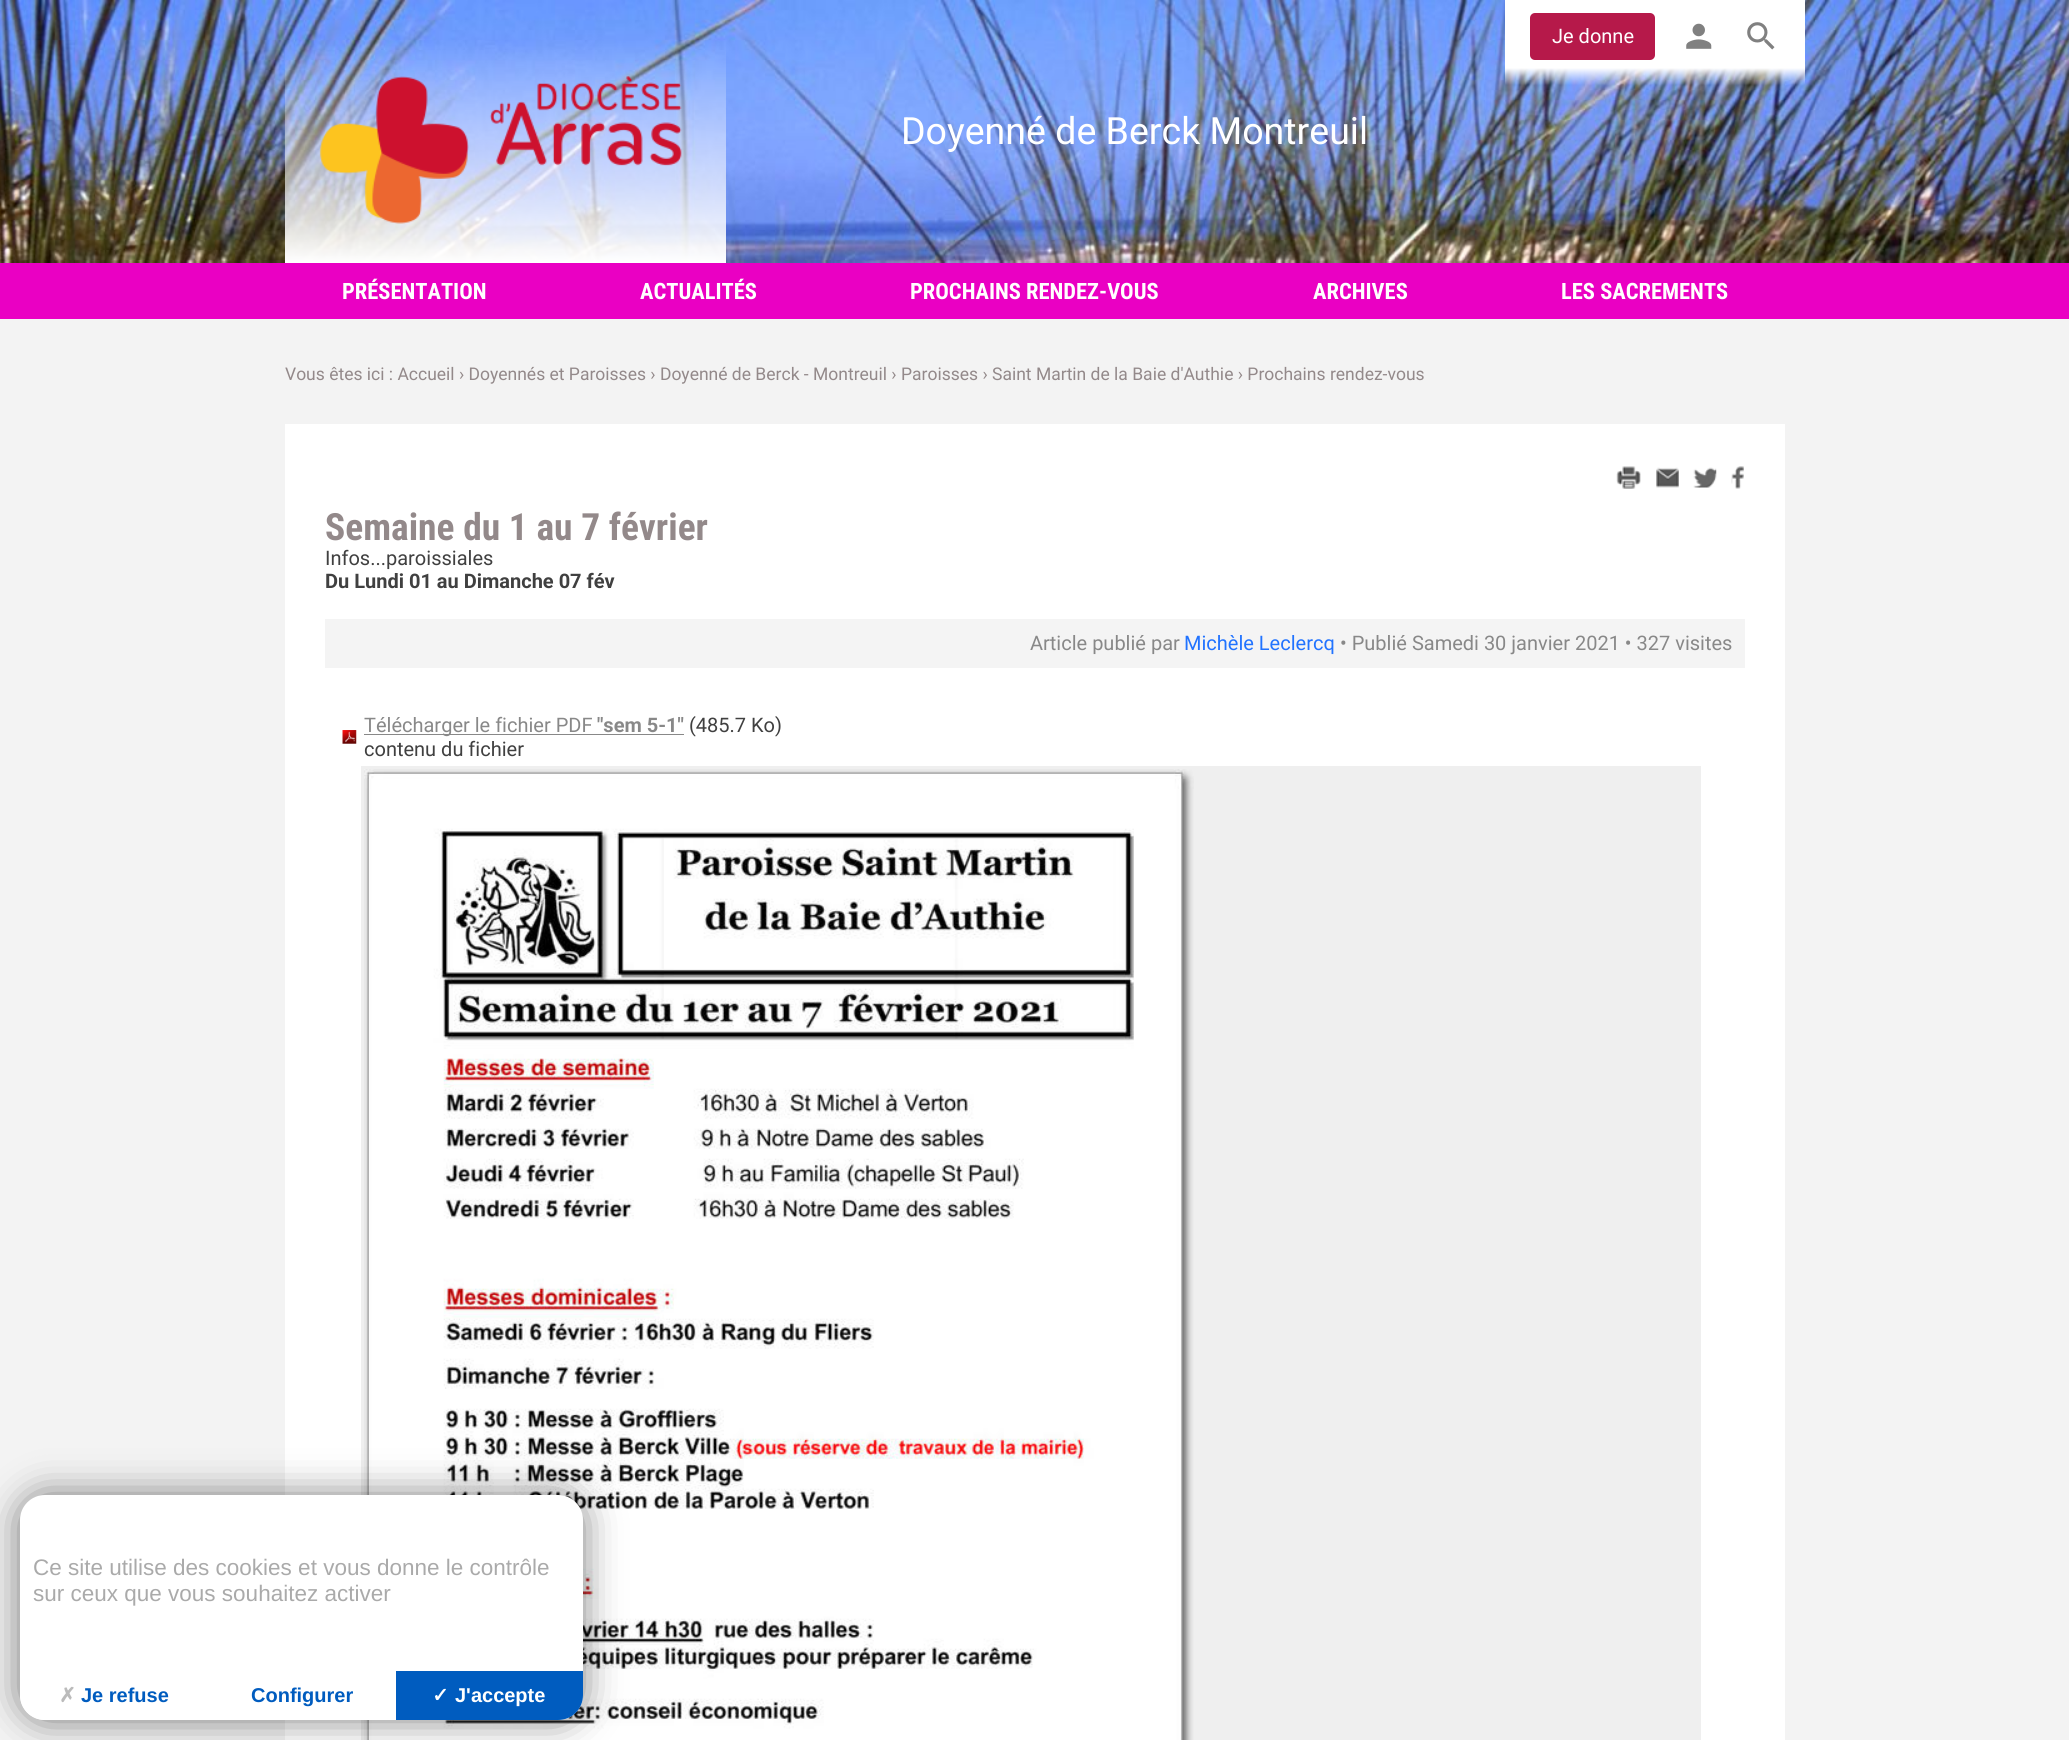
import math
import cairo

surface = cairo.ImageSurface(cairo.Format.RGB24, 2069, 1740)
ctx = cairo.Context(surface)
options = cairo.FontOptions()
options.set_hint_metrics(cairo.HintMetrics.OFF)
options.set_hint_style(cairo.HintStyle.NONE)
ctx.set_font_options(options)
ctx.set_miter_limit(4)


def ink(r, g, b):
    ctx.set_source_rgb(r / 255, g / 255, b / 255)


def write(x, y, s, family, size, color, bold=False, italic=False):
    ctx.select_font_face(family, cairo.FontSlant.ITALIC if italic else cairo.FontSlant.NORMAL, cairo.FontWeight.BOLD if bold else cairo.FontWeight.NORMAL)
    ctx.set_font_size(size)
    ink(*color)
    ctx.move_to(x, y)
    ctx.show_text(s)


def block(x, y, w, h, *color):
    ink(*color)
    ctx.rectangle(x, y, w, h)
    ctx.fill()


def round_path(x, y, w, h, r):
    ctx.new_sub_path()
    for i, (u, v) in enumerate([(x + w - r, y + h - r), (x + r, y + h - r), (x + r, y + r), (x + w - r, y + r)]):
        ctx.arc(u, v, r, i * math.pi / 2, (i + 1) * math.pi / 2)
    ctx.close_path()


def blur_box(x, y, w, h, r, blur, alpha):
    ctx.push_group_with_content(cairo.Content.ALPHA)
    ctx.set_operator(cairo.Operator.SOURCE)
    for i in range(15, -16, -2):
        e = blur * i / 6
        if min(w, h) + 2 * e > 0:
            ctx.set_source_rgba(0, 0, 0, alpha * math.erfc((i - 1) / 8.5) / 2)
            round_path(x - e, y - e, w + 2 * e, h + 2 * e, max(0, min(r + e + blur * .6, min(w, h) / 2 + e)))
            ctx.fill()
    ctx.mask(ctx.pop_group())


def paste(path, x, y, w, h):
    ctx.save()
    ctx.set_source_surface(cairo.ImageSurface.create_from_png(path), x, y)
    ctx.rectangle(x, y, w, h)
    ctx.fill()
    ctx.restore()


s1 = dict(family="Roboto", size=20, color=(255, 255, 255))
s2 = dict(family="Roboto", size=37.5, color=(255, 255, 255))
s3 = dict(family="Roboto Condensed", size=22.5, color=(255, 255, 255), bold=True)
s4 = dict(family="Roboto", size=17.5, color=(147, 137, 138))
s5 = dict(family="Roboto Condensed", size=37.5, color=(147, 137, 138), bold=True)
s6 = dict(family="Roboto", size=20, color=(64, 64, 64))
s7 = dict(family="Roboto", size=20, color=(64, 64, 64), bold=True)
s8 = dict(family="Roboto", size=20, color=(136, 136, 136))
s9 = dict(family="Roboto", size=20, color=(33, 115, 255))
s10 = dict(family="Roboto", size=20, color=(136, 136, 136), bold=True)
s11 = dict(family="Liberation Sans", size=22.5, color=(170, 170, 170))
s12 = dict(family="DejaVu Sans", size=20, color=(187, 187, 187), bold=True)
s13 = dict(family="Liberation Sans", size=20, color=(0, 92, 191), bold=True)
s14 = dict(family="DejaVu Sans", size=20, color=(255, 255, 255), bold=True)
s15 = dict(family="Liberation Sans", size=20, color=(255, 255, 255), bold=True)

ink(243, 243, 243)
ctx.paint()
paste("pic1.png", 0, 0, 2069, 263)
ink(182, 25, 74)
round_path(1530, 13, 125, 47, 5)
ctx.fill()
write(1552, 43, "Je donne", **s1)
paste("pic2.png", 1686, 23, 26, 26)
paste("pic3.png", 1747, 22, 28, 28)
paste("pic4.png", 319, 76, 363, 148)
write(901, 144, "Doyenné de Berck Montreuil", **s2)
block(0, 263, 2069, 56, 234, 0, 195)
write(342, 299, "PRÉSENTATION", **s3)
write(640, 299, "ACTUALITÉS", **s3)
write(910, 299, "PROCHAINS RENDEZ-VOUS", **s3)
write(1313, 299, "ARCHIVES", **s3)
write(1561, 299, "LES SACREMENTS", **s3)
write(285, 380, "Vous êtes ici : Accueil › Doyennés et Paroisses › Doyenné de Berck - Montreuil › Paroisses › Saint Martin de la Baie d'Authie › Prochains rendez-vous", **s4)
block(285, 424, 1500, 1316, 255, 255, 255)
paste("pic5.png", 1616, 466, 25, 23)
paste("pic6.png", 1656, 467, 23, 21)
paste("pic7.png", 1693, 467, 24, 21)
paste("pic8.png", 1731, 466, 13, 23)
write(325, 540, "Semaine du 1 au 7 février", **s5)
write(325, 565, "Infos...paroissiales", **s6)
write(325, 588, "Du Lundi 01 au Dimanche 07 fév", **s7)
block(325, 619, 1420, 49, 244, 244, 244)
write(1030, 650, "Article publié par", **s8)
write(1184, 650, "Michèle Leclercq", **s9)
write(1340, 650, "• Publié Samedi 30 janvier 2021 • 327 visites", **s8)
paste("pic9.png", 342, 730, 15, 14)
block(364, 734, 320, 1, 136, 136, 136)
write(364, 732, "Télécharger le fichier PDF", **s8)
write(597, 732, "\"sem 5-1\"", **s10)
write(689, 732, "(485.7 Ko)", **s6)
write(364, 756, "contenu du fichier", **s6)
block(361, 766, 1340, 974, 239, 239, 239)
paste("pic10.png", 364, 769, 830, 971)
ink(0, 0, 0)
blur_box(20, 1495, 563, 225, 25, 19, 0.5)
ink(255, 255, 255)
round_path(20, 1495, 563, 225, 25)
ctx.fill()
write(33, 1575, "Ce site utilise des cookies et vous donne le contrôle", **s11)
write(33, 1601, "sur ceux que vous souhaitez activer", **s11)
ink(255, 255, 255)
ctx.new_path()
ctx.move_to(20, 1671)
ctx.line_to(208, 1671)
ctx.line_to(208, 1720)
ctx.line_to(45, 1720)
ctx.curve_to(31, 1720, 20, 1709, 20, 1695)
ctx.close_path()
ctx.fill()
write(59, 1702, "✗", **s12)
write(81, 1702, "Je refuse", **s13)
ctx.new_path()
ctx.move_to(395, 1671)
ctx.line_to(583, 1671)
ctx.line_to(583, 1695)
ctx.curve_to(583, 1709, 572, 1720, 558, 1720)
ctx.line_to(395, 1720)
ctx.close_path()
ctx.fill()
block(395, 1671, 1, 49, 255, 255, 255)
write(251, 1702, "Configurer", **s13)
write(432, 1702, "✓", **s14)
write(455, 1702, "J'accepte", **s15)
surface.write_to_png("screenshot.png")
